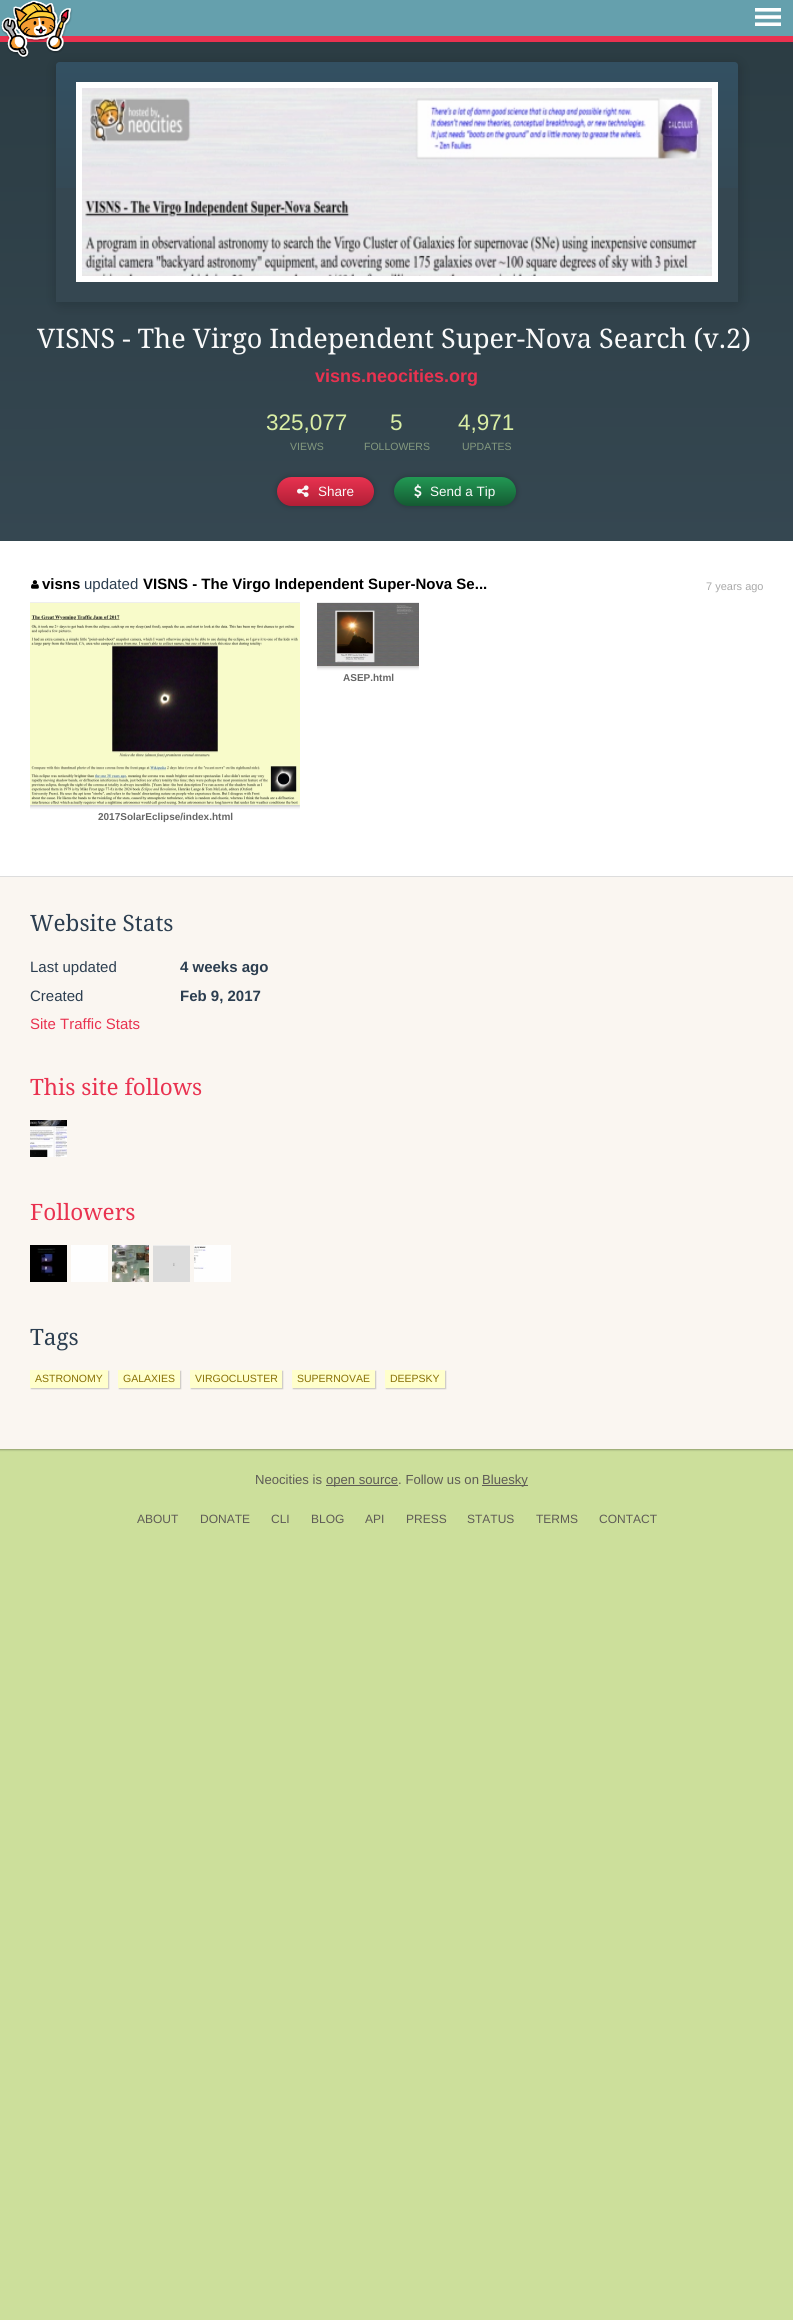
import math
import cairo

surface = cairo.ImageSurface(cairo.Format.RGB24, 793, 2320)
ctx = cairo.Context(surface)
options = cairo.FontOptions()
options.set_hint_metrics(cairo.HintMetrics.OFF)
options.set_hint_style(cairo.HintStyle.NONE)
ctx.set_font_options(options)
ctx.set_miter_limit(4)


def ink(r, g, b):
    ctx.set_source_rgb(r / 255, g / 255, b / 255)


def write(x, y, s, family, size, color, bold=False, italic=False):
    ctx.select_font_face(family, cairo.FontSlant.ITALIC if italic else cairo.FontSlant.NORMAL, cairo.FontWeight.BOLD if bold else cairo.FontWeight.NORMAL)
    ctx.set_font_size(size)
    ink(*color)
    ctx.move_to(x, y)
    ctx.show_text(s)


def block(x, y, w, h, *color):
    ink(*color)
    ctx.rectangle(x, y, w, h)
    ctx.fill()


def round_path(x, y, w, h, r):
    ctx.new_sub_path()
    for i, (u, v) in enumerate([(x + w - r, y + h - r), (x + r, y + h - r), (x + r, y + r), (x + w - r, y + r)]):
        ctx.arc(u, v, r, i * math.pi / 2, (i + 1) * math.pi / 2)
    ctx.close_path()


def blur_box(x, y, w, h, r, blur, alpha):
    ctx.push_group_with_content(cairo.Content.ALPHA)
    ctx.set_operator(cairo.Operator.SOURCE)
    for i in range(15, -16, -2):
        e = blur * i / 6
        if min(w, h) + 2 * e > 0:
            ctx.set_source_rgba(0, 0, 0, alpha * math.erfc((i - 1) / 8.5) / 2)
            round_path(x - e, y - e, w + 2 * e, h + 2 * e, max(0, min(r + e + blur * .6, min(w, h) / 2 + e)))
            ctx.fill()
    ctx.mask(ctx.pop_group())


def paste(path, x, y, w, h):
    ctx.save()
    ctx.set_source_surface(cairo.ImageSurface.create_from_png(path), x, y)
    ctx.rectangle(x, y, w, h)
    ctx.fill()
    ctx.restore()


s1 = dict(family="Droid Serif", size=27, color=(250, 250, 250))
s2 = dict(family="Liberation Sans", size=18, color=(233, 50, 80), bold=True)
s3 = dict(family="Liberation Sans", size=22.5, color=(218, 238, 165))
s4 = dict(family="Liberation Sans", size=10.5, color=(132, 153, 126))
s5 = dict(family="Liberation Sans", size=13.5, color=(250, 250, 250))
s6 = dict(family="Liberation Sans", size=15, color=(0, 0, 0), bold=True)
s7 = dict(family="Liberation Sans", size=15, color=(44, 62, 80))
s8 = dict(family="Liberation Sans", size=11, color=(170, 170, 170))
s9 = dict(family="Liberation Sans", size=10, color=(102, 102, 102), bold=True)
s10 = dict(family="Droid Serif", size=22.5, color=(44, 62, 80))
s11 = dict(family="Liberation Sans", size=15, color=(44, 62, 80), bold=True)
s12 = dict(family="Liberation Sans", size=15, color=(233, 50, 80))
s13 = dict(family="Droid Serif", size=22.5, color=(233, 50, 80))
s14 = dict(family="Liberation Sans", size=10.5, color=(137, 113, 6))
s15 = dict(family="Liberation Sans", size=13.1, color=(94, 91, 86))
s16 = dict(family="Liberation Sans", size=12, color=(94, 91, 86))

ink(204, 223, 155)
ctx.paint()
block(0, 0, 793, 36, 101, 160, 173)
block(0, 36, 793, 6, 233, 50, 80)
gradient = cairo.LinearGradient(396, 22, 397, 541)
gradient.add_color_stop_rgba(0, 0.169, 0.235, 0.263, 1)
gradient.add_color_stop_rgba(1, 0.208, 0.278, 0.318, 1)
ctx.set_source(gradient)
ctx.rectangle(0, 42, 793, 499)
ctx.fill()
ink(0, 0, 0)
blur_box(55, 62, 686, 244, 6, 6, 0.15)
paste("pic1.png", 0, 0, 73, 59)
paste("pic2.png", 755, 8, 26, 18)
ink(53, 71, 81)
ctx.new_path()
ctx.move_to(60, 62)
ctx.line_to(734, 62)
ctx.curve_to(736, 62, 738, 64, 738, 66)
ctx.line_to(738, 302)
ctx.line_to(56, 302)
ctx.line_to(56, 66)
ctx.curve_to(56, 64, 58, 62, 60, 62)
ctx.close_path()
ctx.fill()
paste("pic3.png", 56, 62, 682, 126)
paste("pic4.png", 82, 88, 630, 188)
ctx.rectangle(79, 85, 636, 194)
ink(255, 255, 255)
ctx.set_line_width(6)
ctx.stroke()
write(37, 348, "VISNS - The Virgo Independent Super-Nova Search (v.2)", **s1)
write(315, 382, "visns.neocities.org", **s2)
write(266, 430, "325,077", **s3)
write(290, 450, "VIEWS", **s4)
write(390, 430, "5", **s3)
write(364, 450, "FOLLOWERS", **s4)
write(458, 430, "4,971", **s3)
write(462, 450, "UPDATES", **s4)
ink(0, 0, 0)
blur_box(277, 477, 97, 29, 14.5, 3, 0.25)
gradient = cairo.LinearGradient(326, 477, 326, 506)
gradient.add_color_stop_rgba(0, 0.914, 0.196, 0.314, 1)
gradient.add_color_stop_rgba(1, 0.694, 0.122, 0.212, 1)
ctx.set_source(gradient)
round_path(277, 477, 97, 29, 14.5)
ctx.fill()
paste("pic5.png", 297, 485, 12, 12)
write(318, 496, "Share", **s5)
ink(0, 0, 0)
blur_box(394, 477, 122, 29, 14.5, 3, 0.25)
gradient = cairo.LinearGradient(455, 477, 455, 506)
gradient.add_color_stop_rgba(0, 0.133, 0.6, 0.329, 1)
gradient.add_color_stop_rgba(1, 0.078, 0.353, 0.196, 1)
ctx.set_source(gradient)
round_path(394, 477, 122, 29, 14.5)
ctx.fill()
paste("pic6.png", 414, 484, 8, 14)
write(430, 496, "Send a Tip", **s5)
block(0, 1449, 793, 1, 179, 195, 136)
ink(0, 0, 0)
blur_box(-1, 541, 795, 910, 0, 0.5, 0.1)
block(0, 877, 793, 572, 250, 246, 241)
block(0, 541, 793, 335, 255, 255, 255)
block(0, 876, 793, 1, 221, 221, 221)
paste("pic7.png", 31, 580, 8, 9)
write(42, 589, "visns", **s6)
write(84, 589, "updated", **s7)
write(143, 589, "VISNS - The Virgo Independent Super-Nova Se...", **s6)
write(706, 590, "7 years ago", **s8)
ctx.save()
ctx.rectangle(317, 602, 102, 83)
ctx.clip()
ink(0, 0, 0)
blur_box(317, 604, 102, 63, 0, 2, 0.3)
ctx.restore()
paste("pic8.png", 317, 603, 102, 63)
write(343, 681, "ASEP.html", **s9)
ctx.save()
ctx.rectangle(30, 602, 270, 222)
ctx.clip()
ink(0, 0, 0)
blur_box(30, 604, 270, 202, 0, 2, 0.3)
ctx.restore()
paste("pic9.png", 30, 603, 270, 202)
write(98, 820, "2017SolarEclipse/index.html", **s9)
write(30, 931, "Website Stats", **s10)
write(30, 972, "Last updated", **s7)
write(180, 972, "4 weeks ago", **s11)
write(30, 1001, "Created", **s7)
write(180, 1001, "Feb 9, 2017", **s11)
write(30, 1029, "Site Traffic Stats", **s12)
write(30, 1095, "This site follows", **s13)
paste("pic10.png", 30, 1120, 37, 37)
write(30, 1220, "Followers", **s13)
paste("pic11.png", 30, 1245, 37, 37)
block(71, 1245, 37, 37, 254, 254, 254)
paste("pic12.png", 112, 1245, 37, 37)
paste("pic13.png", 153, 1245, 37, 37)
paste("pic14.png", 194, 1245, 37, 37)
write(30, 1345, "Tags", **s10)
ink(0, 0, 0)
blur_box(31, 1371, 78, 18, 0, 0.5, 0.2)
block(30, 1370, 78, 18, 255, 255, 204)
write(35, 1382, "ASTRONOMY", **s14)
ink(0, 0, 0)
blur_box(119, 1371, 62, 18, 0, 0.5, 0.2)
block(118, 1370, 62, 18, 255, 255, 204)
write(123, 1382, "GALAXIES", **s14)
ink(0, 0, 0)
blur_box(191, 1371, 92, 18, 0, 0.5, 0.2)
block(190, 1370, 92, 18, 255, 255, 204)
write(195, 1382, "VIRGOCLUSTER", **s14)
ink(0, 0, 0)
blur_box(293, 1371, 83, 18, 0, 0.5, 0.2)
block(292, 1370, 83, 18, 255, 255, 204)
write(297, 1382, "SUPERNOVAE", **s14)
ink(0, 0, 0)
blur_box(386, 1371, 60, 18, 0, 0.5, 0.2)
block(385, 1370, 60, 18, 255, 255, 204)
write(390, 1382, "DEEPSKY", **s14)
write(255, 1484, "Neocities is", **s15)
block(326, 1485, 72, 1, 94, 91, 86)
write(326, 1484, "open source. Follow us on", **s15)
block(482, 1485, 46, 1, 94, 91, 86)
write(482, 1484, "Bluesky", **s15)
write(137, 1523, "ABOUT", **s16)
write(200, 1523, "DONATE", **s16)
write(271, 1523, "CLI", **s16)
write(311, 1523, "BLOG", **s16)
write(365, 1523, "API", **s16)
write(406, 1523, "PRESS", **s16)
write(467, 1523, "STATUS", **s16)
write(536, 1523, "TERMS", **s16)
write(599, 1523, "CONTACT", **s16)
surface.write_to_png("screenshot.png")
